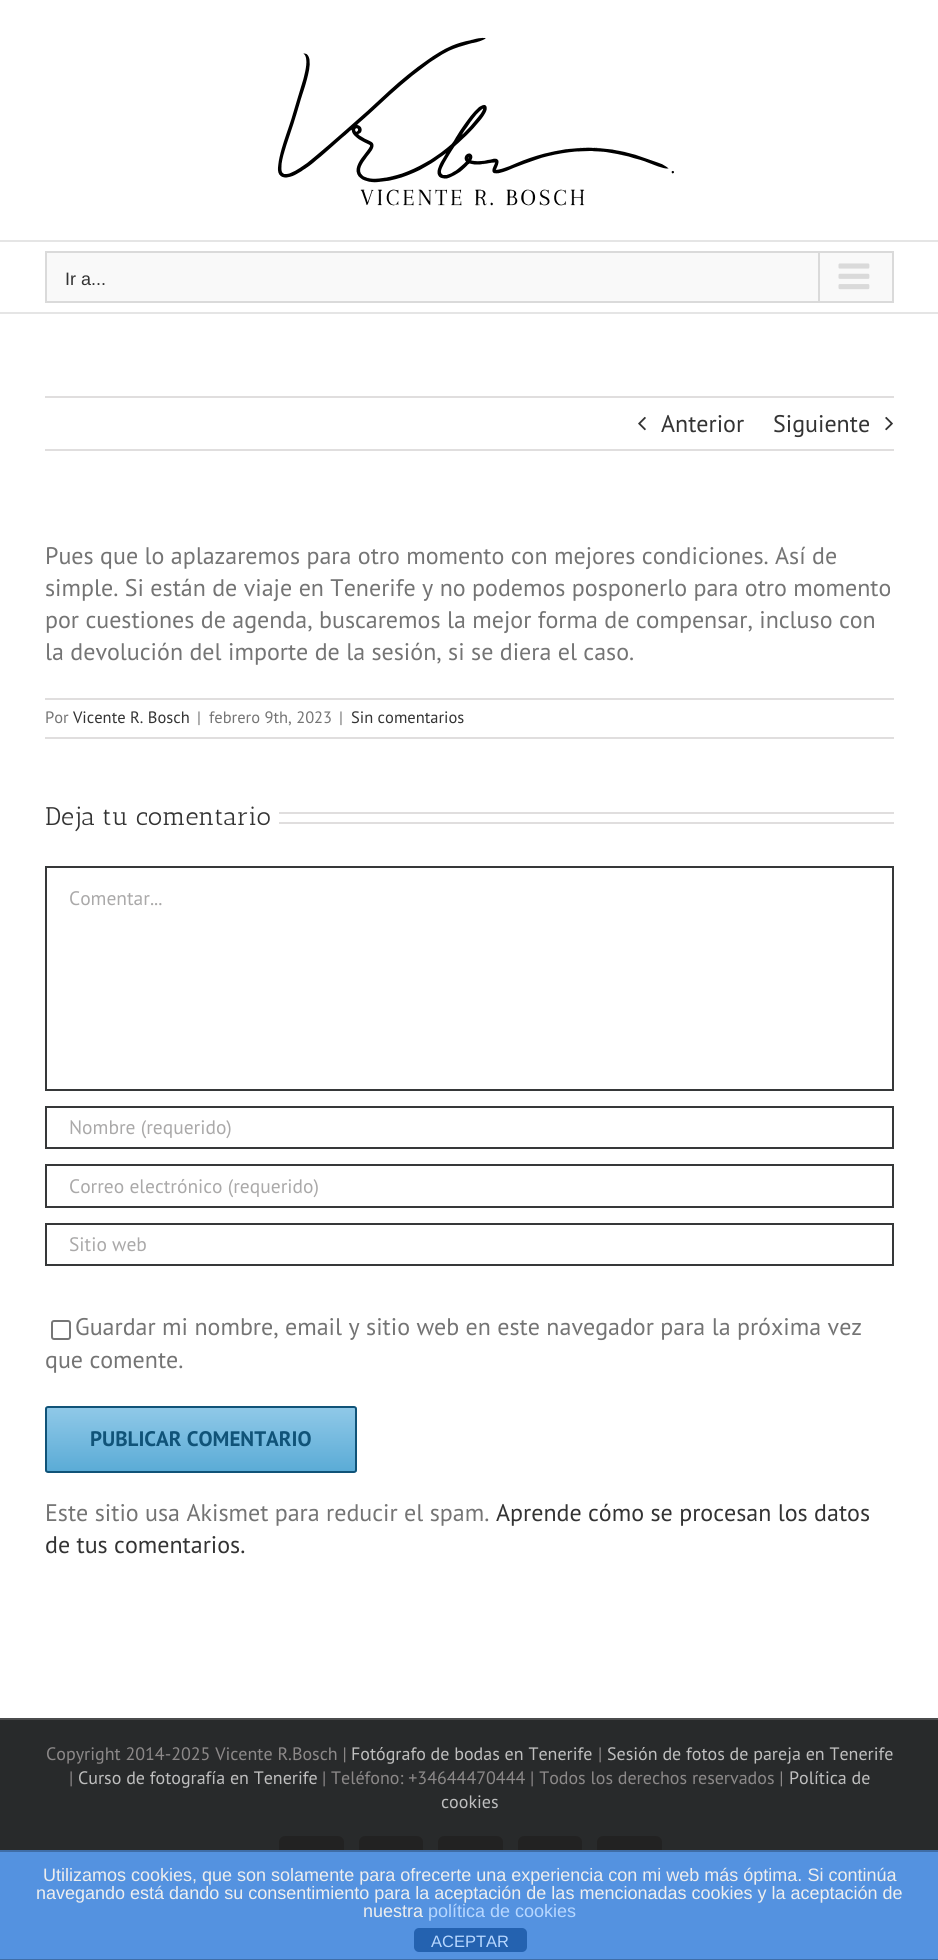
import math
import cairo

surface = cairo.ImageSurface(cairo.Format.RGB24, 938, 1960)
ctx = cairo.Context(surface)
options = cairo.FontOptions()
options.set_hint_metrics(cairo.HintMetrics.OFF)
options.set_hint_style(cairo.HintStyle.NONE)
ctx.set_font_options(options)
ctx.set_miter_limit(4)


def ink(r, g, b):
    ctx.set_source_rgb(r / 255, g / 255, b / 255)


def write(x, y, s, family, size, color, bold=False, italic=False):
    ctx.select_font_face(family, cairo.FontSlant.ITALIC if italic else cairo.FontSlant.NORMAL, cairo.FontWeight.BOLD if bold else cairo.FontWeight.NORMAL)
    ctx.set_font_size(size)
    ink(*color)
    ctx.move_to(x, y)
    ctx.show_text(s)


def block(x, y, w, h, *color):
    ink(*color)
    ctx.rectangle(x, y, w, h)
    ctx.fill()


def round_path(x, y, w, h, r):
    ctx.new_sub_path()
    for i, (u, v) in enumerate([(x + w - r, y + h - r), (x + r, y + h - r), (x + r, y + r), (x + w - r, y + r)]):
        ctx.arc(u, v, r, i * math.pi / 2, (i + 1) * math.pi / 2)
    ctx.close_path()


def paste(path, x, y, w, h):
    ctx.save()
    ctx.set_source_surface(cairo.ImageSurface.create_from_png(path), x, y)
    ctx.rectangle(x, y, w, h)
    ctx.fill()
    ctx.restore()


s1 = dict(family="Liberation Sans", size=18, color=(51, 51, 51))
s2 = dict(family="PT Sans", size=24, color=(51, 51, 51))
s3 = dict(family="PT Sans", size=24, color=(116, 116, 116))
s4 = dict(family="PT Sans", size=16.5, color=(116, 116, 116))
s5 = dict(family="PT Sans", size=16.5, color=(51, 51, 51))
s6 = dict(family="Antic Slab", size=25.5, color=(51, 51, 51))
s7 = dict(family="PT Sans", size=19.5, color=(170, 169, 169))
s8 = dict(family="PT Sans", size=21, color=(16, 83, 120), bold=True)
s9 = dict(family="PT Sans", size=18, color=(140, 137, 137))
s10 = dict(family="PT Sans", size=18, color=(191, 191, 191))
s11 = dict(family="Liberation Sans", size=18, color=(238, 238, 238))
s12 = dict(family="Liberation Sans", size=18, color=(183, 215, 255))
s13 = dict(family="Liberation Sans", size=16.5, color=(183, 215, 255))

ink(255, 255, 255)
ctx.paint()
block(0, 240, 938, 2, 229, 229, 229)
paste("pic1.png", 277, 37, 397, 169)
block(0, 312, 938, 2, 229, 229, 229)
ink(249, 249, 249)
ctx.rectangle(46, 252, 847, 50)
ctx.fill_preserve()
ink(218, 218, 218)
ctx.stroke()
write(65, 285, "Ir a...", **s1)
block(818, 252, 2, 50, 218, 218, 218)
paste("pic2.png", 838, 263, 32, 27)
block(45, 396, 849, 2, 224, 222, 222)
block(45, 449, 849, 2, 224, 222, 222)
paste("pic3.png", 638, 416, 8, 15)
write(661, 432, "Anterior", **s2)
write(773, 432, "Siguiente", **s2)
paste("pic4.png", 885, 416, 8, 15)
write(45, 564, "Pues que lo aplazaremos para otro momento con mejores condiciones. Así de", **s3)
write(45, 596, "simple. Si están de viaje en Tenerife y no podemos posponerlo para otro momento", **s3)
write(45, 628, "por cuestiones de agenda, buscaremos la mejor forma de compensar, incluso con", **s3)
write(45, 660, "la devolución del importe de la sesión, si se diera el caso.", **s3)
block(45, 698, 849, 2, 224, 222, 222)
block(45, 737, 849, 2, 224, 222, 222)
write(45, 723, "Por", **s4)
write(73, 723, "Vicente R. Bosch", **s5)
write(197, 723, "|", **s4)
write(209, 723, "febrero 9th, 2023", **s4)
write(339, 723, "|", **s4)
write(351, 723, "Sin comentarios", **s5)
write(45, 825, "Deja tu comentario", **s6)
block(279, 812, 615, 2, 224, 222, 222)
block(279, 822, 615, 2, 224, 222, 222)
ctx.rectangle(46, 867, 847, 223)
ink(54, 56, 57)
ctx.stroke()
write(69, 905, "Comentar...", **s7)
ctx.rectangle(46, 1107, 847, 41)
ink(54, 56, 57)
ctx.stroke()
write(69, 1134, "Nombre (requerido)", **s7)
ctx.rectangle(46, 1165, 847, 42)
ink(54, 56, 57)
ctx.stroke()
write(69, 1193, "Correo electrónico (requerido)", **s7)
ctx.rectangle(46, 1224, 847, 41)
ink(54, 56, 57)
ctx.stroke()
write(69, 1251, "Sitio web", **s7)
round_path(52, 1321, 18, 18, 2)
ink(118, 118, 118)
ctx.stroke()
write(75, 1335, "Guardar mi nombre, email y sitio web en este navegador para la próxima vez", **s3)
write(45, 1368, "que comente.", **s3)
ctx.save()
round_path(45, 1406, 312, 67, 3)
ctx.clip()
gradient = cairo.LinearGradient(201, 1407, 201, 1472)
gradient.add_color_stop_rgba(0, 0.565, 0.788, 0.91, 1)
gradient.add_color_stop_rgba(1, 0.353, 0.671, 0.839, 1)
ctx.set_source(gradient)
ctx.rectangle(45, 1407, 312, 65)
ctx.fill()
ctx.restore()
round_path(46, 1407, 310, 65, 2)
ink(16, 83, 120)
ctx.stroke()
write(90, 1446, "PUBLICAR COMENTARIO", **s8)
write(45, 1521, "Este sitio usa Akismet para reducir el spam.", **s3)
write(496, 1521, "Aprende cómo se procesan los datos", **s2)
write(45, 1553, "de tus comentarios.", **s2)
block(0, 1720, 938, 130, 40, 42, 43)
block(0, 1718, 938, 2, 75, 76, 77)
write(46, 1760, "Copyright 2014-2025 Vicente R.Bosch |", **s9)
write(351, 1760, "Fotógrafo de bodas en Tenerife", **s10)
write(598, 1760, "|", **s9)
write(607, 1760, "Sesión de fotos de pareja en Tenerife", **s10)
write(69, 1784, "|", **s9)
write(78, 1784, "Curso de fotografía en Tenerife", **s10)
write(322, 1784, "| Teléfono: +34644470444 | Todos los derechos reservados |", **s9)
write(789, 1784, "Política de", **s10)
write(441, 1808, "cookies", **s10)
ink(34, 34, 34)
round_path(280, 1837, 63, 63, 5)
ctx.fill_preserve()
ctx.stroke()
round_path(360, 1837, 62, 63, 5)
ctx.fill_preserve()
ctx.stroke()
round_path(439, 1837, 63, 63, 5)
ctx.fill_preserve()
ctx.stroke()
round_path(519, 1837, 62, 63, 5)
ctx.fill_preserve()
ctx.stroke()
round_path(598, 1837, 63, 63, 5)
ctx.fill_preserve()
ctx.stroke()
block(0, 1852, 938, 107, 84, 146, 224)
block(0, 1850, 938, 2, 63, 109, 167)
block(0, 1959, 938, 1, 63, 109, 167)
write(43, 1881, "Utilizamos cookies, que son solamente para ofrecerte una experiencia con mi web más óptima. Si continúa", **s11)
write(36, 1899, "navegando está dando su consentimiento para la aceptación de las mencionadas cookies y la aceptación de", **s11)
write(363, 1917, "nuestra", **s11)
write(428, 1917, "política de cookies", **s12)
ink(36, 98, 176)
round_path(414, 1928, 113, 24, 5)
ctx.fill()
write(431, 1947, "ACEPTAR", **s13)
surface.write_to_png("screenshot.png")
